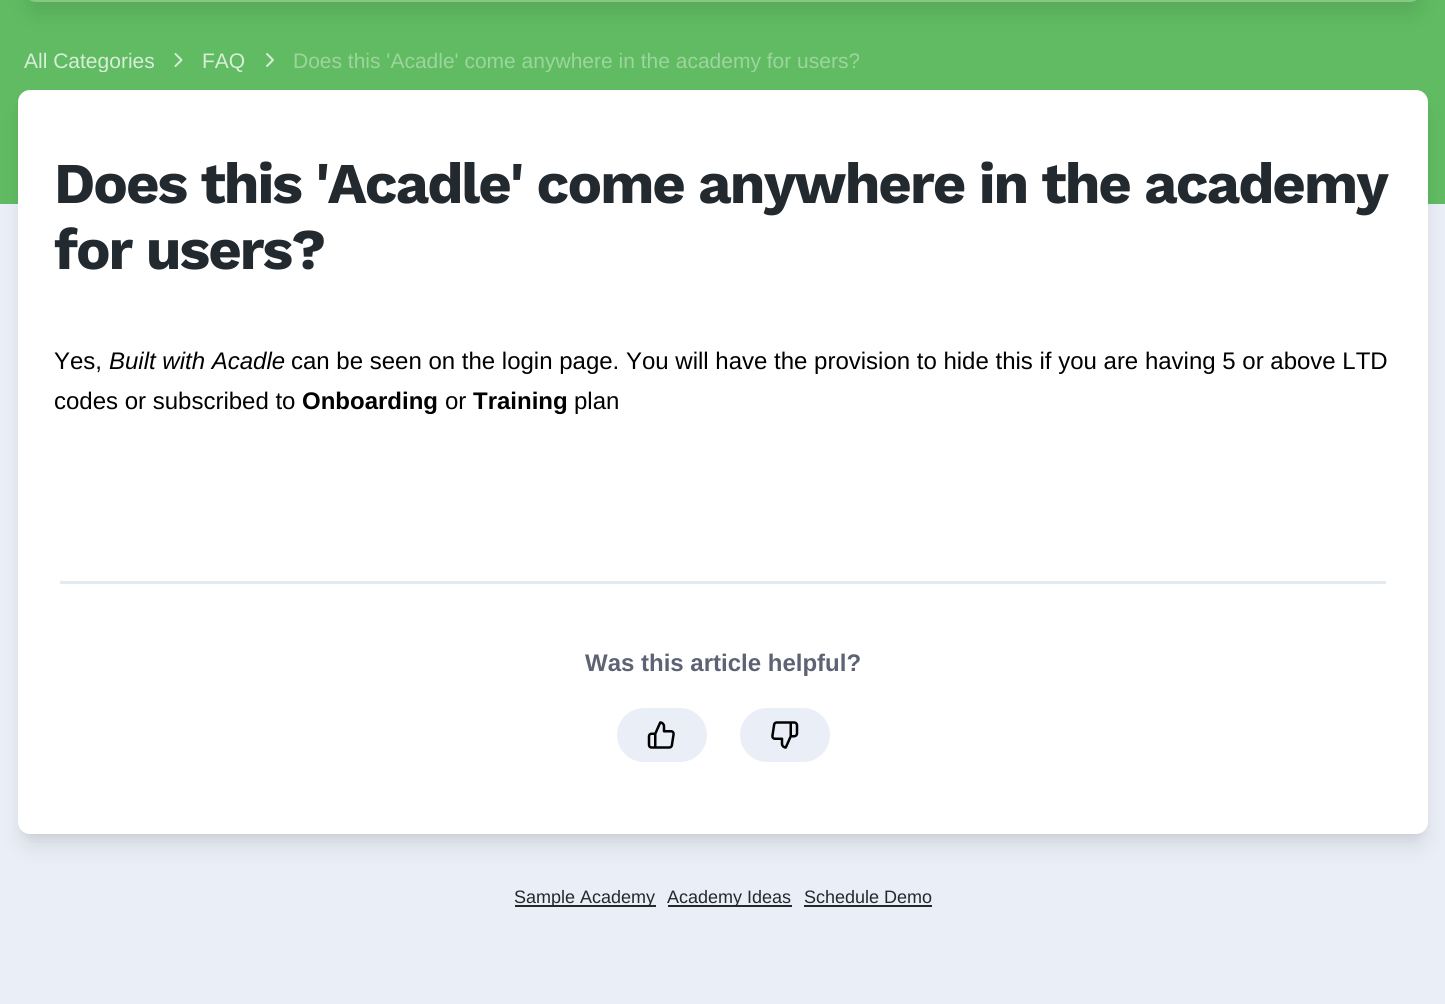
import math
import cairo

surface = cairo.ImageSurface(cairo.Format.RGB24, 1445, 1004)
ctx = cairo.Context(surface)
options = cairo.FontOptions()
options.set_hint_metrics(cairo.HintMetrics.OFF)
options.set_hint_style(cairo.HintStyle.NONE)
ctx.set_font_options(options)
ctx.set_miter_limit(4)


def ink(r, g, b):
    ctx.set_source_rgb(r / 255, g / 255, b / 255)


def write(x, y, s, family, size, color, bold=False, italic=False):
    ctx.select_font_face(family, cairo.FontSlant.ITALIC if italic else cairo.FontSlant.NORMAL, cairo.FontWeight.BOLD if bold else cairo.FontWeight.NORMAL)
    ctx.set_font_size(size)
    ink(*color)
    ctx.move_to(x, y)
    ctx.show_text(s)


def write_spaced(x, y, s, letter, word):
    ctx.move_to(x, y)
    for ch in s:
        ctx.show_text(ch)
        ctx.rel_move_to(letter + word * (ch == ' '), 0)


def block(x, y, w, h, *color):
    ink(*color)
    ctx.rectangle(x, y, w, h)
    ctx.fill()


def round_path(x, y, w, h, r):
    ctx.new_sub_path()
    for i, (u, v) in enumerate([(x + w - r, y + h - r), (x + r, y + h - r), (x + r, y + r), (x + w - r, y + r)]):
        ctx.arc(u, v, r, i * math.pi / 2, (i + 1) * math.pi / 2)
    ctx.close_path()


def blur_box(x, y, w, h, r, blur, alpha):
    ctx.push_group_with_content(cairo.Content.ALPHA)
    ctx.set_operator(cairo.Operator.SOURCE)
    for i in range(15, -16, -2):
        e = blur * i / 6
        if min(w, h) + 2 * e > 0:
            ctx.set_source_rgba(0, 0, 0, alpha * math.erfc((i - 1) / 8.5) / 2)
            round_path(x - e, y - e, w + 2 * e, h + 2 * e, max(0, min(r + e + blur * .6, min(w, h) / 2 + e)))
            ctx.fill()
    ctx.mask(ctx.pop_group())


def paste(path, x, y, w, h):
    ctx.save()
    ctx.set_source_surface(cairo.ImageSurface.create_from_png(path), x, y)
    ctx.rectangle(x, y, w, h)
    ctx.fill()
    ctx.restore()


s1 = dict(family="Liberation Sans", size=21, color=(215, 238, 216))
s2 = dict(family="Liberation Sans", size=21, color=(156, 213, 157))
s3 = dict(family="Liberation Sans", size=24, color=(0, 0, 0))
s4 = dict(family="Liberation Sans", size=24, color=(0, 0, 0), italic=True)
s5 = dict(family="Liberation Sans", size=24, color=(0, 0, 0), bold=True)
s6 = dict(family="Liberation Sans", size=24, color=(93, 99, 116), bold=True)
s7 = dict(family="Liberation Sans", size=18, color=(34, 41, 47))

ink(234, 238, 246)
ctx.paint()
block(0, 0, 1445, 204, 96, 187, 98)
ctx.save()
ctx.set_fill_rule(cairo.FillRule.EVEN_ODD)
ctx.new_path()
ctx.move_to(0, 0)
ctx.line_to(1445, 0)
ctx.line_to(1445, 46)
ctx.line_to(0, 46)
ctx.close_path()
ctx.move_to(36, -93)
ctx.line_to(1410, -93)
ctx.curve_to(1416.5, -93, 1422, -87.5, 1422, -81)
ctx.line_to(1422, -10)
ctx.curve_to(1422, -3.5, 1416.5, 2, 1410, 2)
ctx.line_to(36, 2)
ctx.curve_to(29.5, 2, 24, -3.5, 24, -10)
ctx.line_to(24, -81)
ctx.curve_to(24, -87.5, 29.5, -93, 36, -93)
ctx.close_path()
ctx.clip()
ink(0, 0, 0)
blur_box(29, -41, 1389, 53, 8, 11, 0.1)
ctx.restore()
ctx.set_source_rgba(1, 1, 1, 0.22)
round_path(24, -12, 1398, 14, 12)
ctx.fill()
ctx.save()
ctx.rectangle(18, 48, 1410, 24)
ctx.clip()
write(24, 68, "All Categories", **s1)
ctx.restore()
ctx.new_path()
ctx.move_to(175.5, 66)
ctx.line_to(181.5, 60)
ctx.line_to(175.5, 54)
ink(215, 238, 216)
ctx.set_line_cap(cairo.LineCap.ROUND)
ctx.set_line_join(cairo.LineJoin.ROUND)
ctx.stroke()
write(202, 68, "FAQ", **s1)
ctx.new_path()
ctx.move_to(267, 66)
ctx.line_to(273, 60)
ctx.line_to(267, 54)
ctx.stroke()
ctx.save()
ctx.rectangle(18, 48, 1410, 24)
ctx.clip()
write(293, 68, "Does this 'Acadle' come anywhere in the academy for users?", **s2)
ctx.restore()
ink(0, 0, 0)
blur_box(21, 99, 1404, 738, 9, 4.5, 0.05)
blur_box(23, 110, 1401, 735, 8, 11, 0.1)
ink(255, 255, 255)
round_path(18, 90, 1410, 744, 12)
ctx.fill()
ctx.select_font_face("Work Sans", cairo.FontSlant.NORMAL, cairo.FontWeight.BOLD)
ctx.set_font_size(57.6)
ink(34, 41, 47)
write_spaced(54, 203, "Does this 'Acadle' come anywhere in the academy", -2, 0)
write_spaced(54, 269, "for users?", -2, 0)
write(54, 369, "Yes,", **s3)
write(109, 369, "Built with Acadle", **s4)
write(291, 369, "can be seen on the login page. You will have the provision to hide this if you are having 5 or above LTD", **s3)
write(54, 409, "codes or subscribed to", **s3)
write(302, 409, "Onboarding", **s5)
write(445, 409, "or", **s3)
write(473, 409, "Training", **s5)
write(574, 409, "plan", **s3)
block(60, 581, 1326, 3, 228, 235, 240)
write(585, 671, "Was this article helpful?", **s6)
ink(234, 238, 246)
round_path(617, 708, 90, 54, 27)
ctx.fill()
paste("pic1.png", 647, 721, 28, 28)
round_path(740, 708, 90, 54, 27)
ctx.fill()
paste("pic2.png", 771, 721, 28, 28)
block(515, 905, 141, 2, 34, 41, 47)
write(514, 903, "Sample Academy", **s7)
block(668, 905, 124, 2, 34, 41, 47)
write(667, 903, "Academy Ideas", **s7)
write(804, 903, "Schedule Demo", **s7)
block(804, 905, 128, 2, 34, 41, 47)
surface.write_to_png("screenshot.png")
